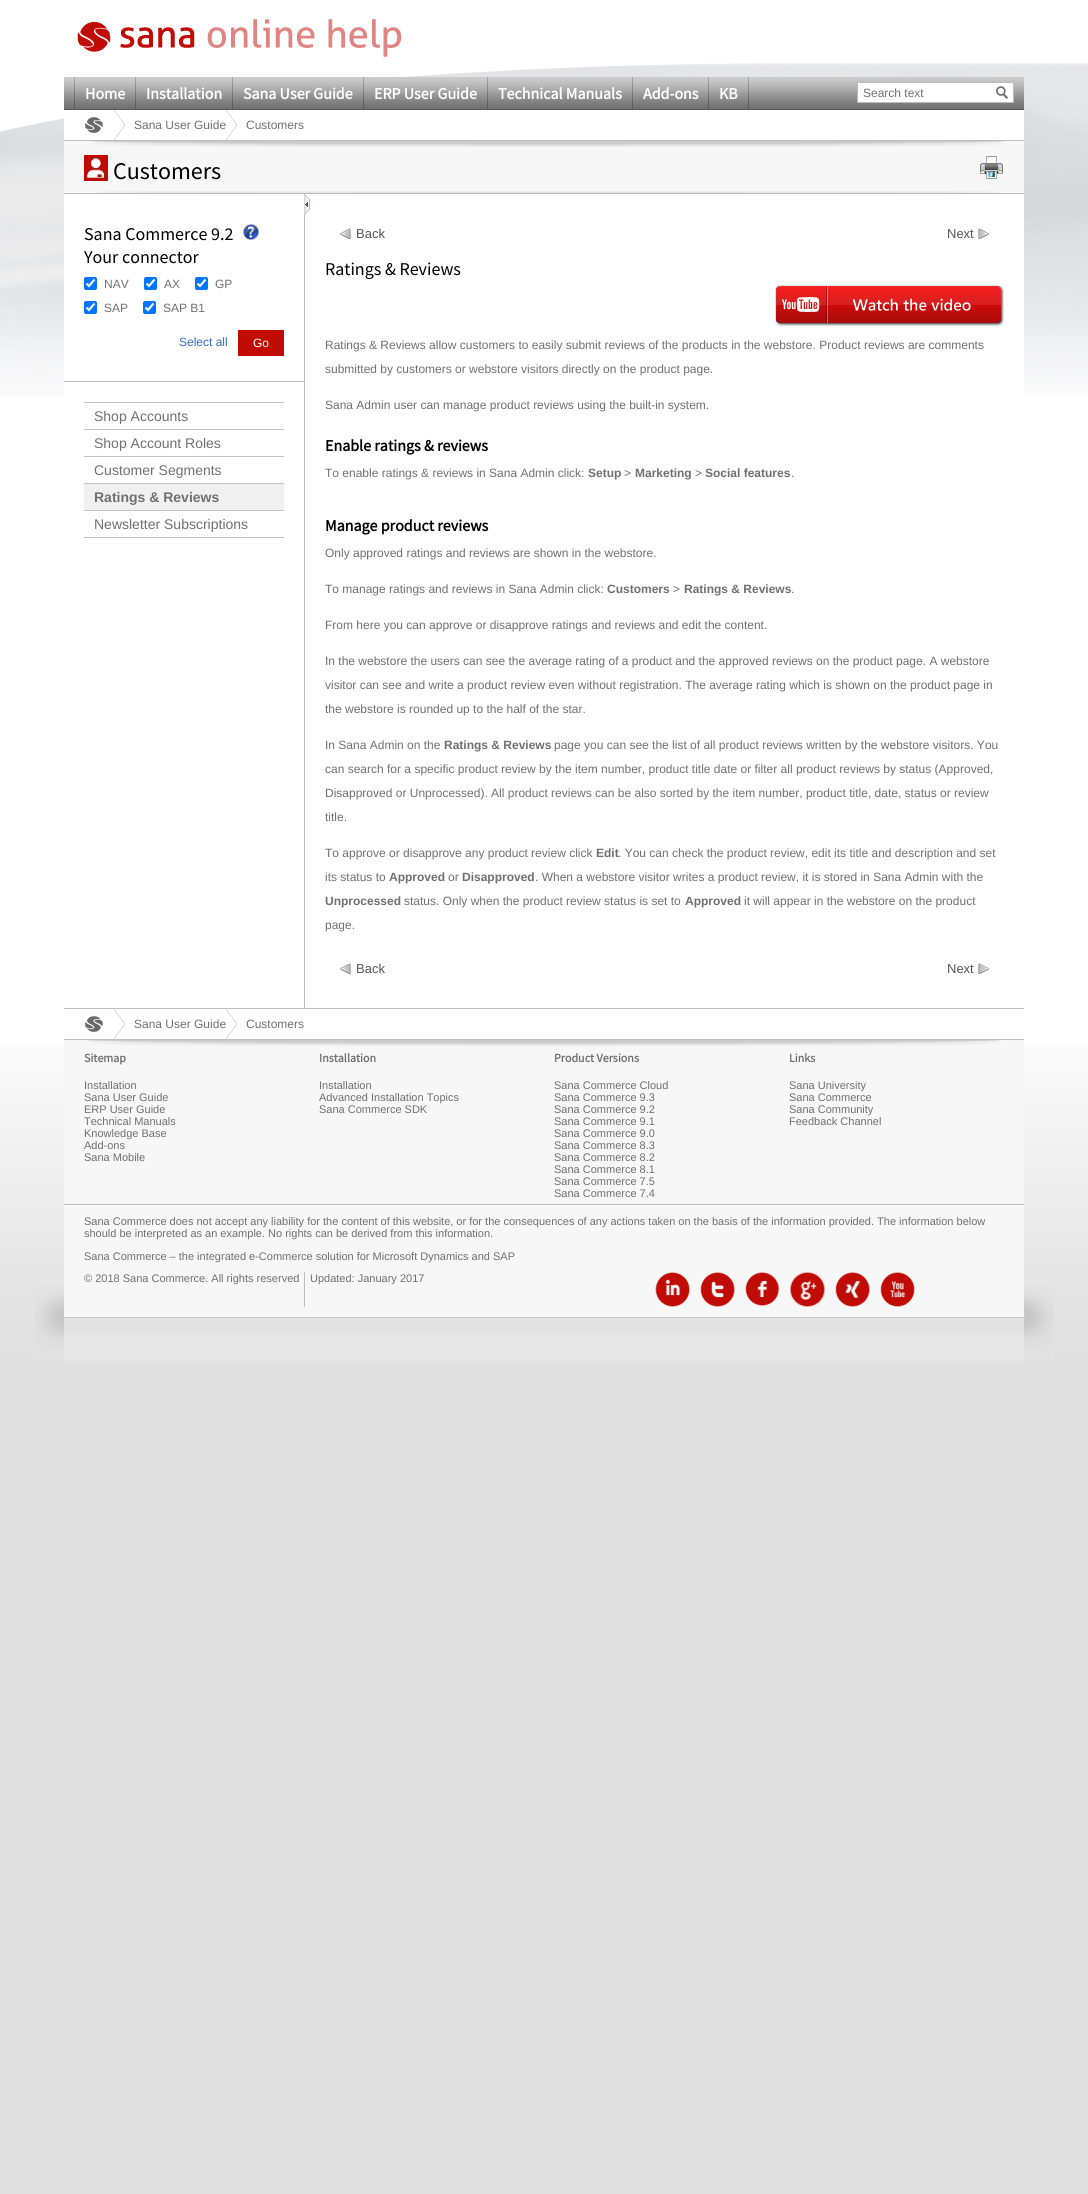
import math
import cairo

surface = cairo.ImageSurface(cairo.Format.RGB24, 1088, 2194)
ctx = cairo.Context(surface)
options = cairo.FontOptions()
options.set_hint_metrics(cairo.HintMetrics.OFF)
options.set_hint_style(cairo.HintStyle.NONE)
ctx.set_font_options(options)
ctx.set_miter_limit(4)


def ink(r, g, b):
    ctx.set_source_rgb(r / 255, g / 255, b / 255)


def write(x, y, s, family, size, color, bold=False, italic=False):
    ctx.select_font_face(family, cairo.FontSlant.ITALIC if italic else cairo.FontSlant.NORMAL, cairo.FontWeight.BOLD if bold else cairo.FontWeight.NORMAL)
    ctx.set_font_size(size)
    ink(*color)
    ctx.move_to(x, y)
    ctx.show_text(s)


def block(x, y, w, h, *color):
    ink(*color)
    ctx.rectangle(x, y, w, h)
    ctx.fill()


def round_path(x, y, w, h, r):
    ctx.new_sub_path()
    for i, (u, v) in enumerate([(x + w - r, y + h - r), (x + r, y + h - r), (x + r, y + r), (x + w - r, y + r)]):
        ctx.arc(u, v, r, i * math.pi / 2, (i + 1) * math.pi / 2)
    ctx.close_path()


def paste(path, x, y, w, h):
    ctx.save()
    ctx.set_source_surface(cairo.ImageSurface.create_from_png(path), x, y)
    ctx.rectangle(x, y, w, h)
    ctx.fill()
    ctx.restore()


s1 = dict(family="Source Sans Pro", size=16, color=(255, 255, 255), bold=True)
s2 = dict(family="Liberation Sans", size=12, color=(112, 112, 112))
s3 = dict(family="Source Sans Pro", size=24, color=(0, 0, 0))
s4 = dict(family="Source Sans Pro", size=18, color=(0, 0, 0))
s5 = dict(family="Liberation Sans", size=12, color=(49, 106, 197))
s6 = dict(family="Liberation Sans", size=12, color=(255, 255, 255))
s7 = dict(family="Liberation Sans", size=14, color=(112, 112, 112))
s8 = dict(family="Liberation Sans", size=14, color=(112, 112, 112), bold=True)
s9 = dict(family="Liberation Sans", size=13, color=(85, 85, 85))
s10 = dict(family="Source Sans Pro", size=16, color=(0, 0, 0), bold=True)
s11 = dict(family="Liberation Sans", size=12, color=(112, 112, 112), bold=True)
s12 = dict(family="Source Sans Pro", size=12, color=(112, 112, 112), bold=True)
s13 = dict(family="Liberation Sans", size=11, color=(112, 112, 112))

ink(224, 224, 224)
ctx.paint()
block(0, 0, 1088, 1047, 255, 255, 255)
paste("pic1.png", 0, 1047, 1088, 320)
paste("pic2.png", 35, 1275, 1019, 86)
paste("pic3.png", 0, 63, 1088, 333)
paste("pic4.png", 77, 19, 325, 38)
paste("pic5.png", 64, 77, 960, 32)
block(64, 109, 960, 1, 86, 86, 86)
paste("pic6.png", 74, 77, 675, 32)
paste("pic7.png", 75, 77, 60, 32)
write(85, 99, "Home", **s1)
paste("pic8.png", 136, 77, 96, 32)
write(146, 99, "Installation", **s1)
paste("pic9.png", 233, 77, 130, 32)
write(243, 99, "Sana User Guide", **s1)
paste("pic10.png", 364, 77, 123, 32)
write(374, 99, "ERP User Guide", **s1)
paste("pic11.png", 488, 77, 144, 32)
write(498, 99, "Technical Manuals", **s1)
paste("pic12.png", 633, 77, 75, 32)
write(643, 99, "Add-ons", **s1)
paste("pic13.png", 709, 77, 39, 32)
write(719, 99, "KB", **s1)
block(858, 83, 155, 19, 255, 255, 255)
block(857, 82, 157, 1, 188, 188, 188)
block(857, 102, 137, 1, 188, 188, 188)
block(857, 82, 1, 21, 188, 188, 188)
write(863, 97, "Search text", **s2)
block(1013, 82, 1, 21, 188, 188, 188)
block(994, 102, 20, 1, 188, 188, 188)
paste("pic14.png", 996, 86, 12, 13)
block(64, 110, 960, 30, 255, 255, 255)
block(64, 140, 960, 1, 188, 188, 188)
paste("pic15.png", 85, 117, 18, 16)
paste("pic16.png", 114, 110, 11, 30)
write(134, 129, "Sana User Guide", **s2)
paste("pic16.png", 226, 110, 11, 30)
write(246, 129, "Customers", **s2)
block(64, 194, 960, 202, 255, 255, 255)
block(64, 141, 960, 52, 247, 247, 247)
block(64, 193, 960, 1, 188, 188, 188)
paste("pic17.png", 91, 141, 915, 6)
paste("pic18.png", 84, 155, 24, 26)
write(113, 179, "Customers", **s3)
paste("pic19.png", 980, 156, 23, 23)
paste("pic20.png", 96, 191, 905, 2)
block(64, 381, 241, 1, 188, 188, 188)
block(304, 194, 1, 814, 188, 188, 188)
paste("pic21.png", 304, 195, 6, 19)
write(84, 240, "Sana Commerce 9.2", **s4)
write(84, 263, "Your connector", **s4)
paste("pic22.png", 243, 224, 16, 16)
ink(0, 117, 255)
round_path(84, 277, 13, 13, 2)
ctx.fill()
ctx.new_path()
ctx.move_to(86.5, 283.5)
ctx.line_to(89, 286)
ctx.line_to(94.5, 279.5)
ink(255, 255, 255)
ctx.set_line_width(2.1)
ctx.stroke()
write(104, 288, "NAV", **s2)
ink(0, 117, 255)
round_path(144, 277, 13, 13, 2)
ctx.fill()
ctx.new_path()
ctx.move_to(146.5, 283.5)
ctx.line_to(149, 286)
ctx.line_to(154.5, 279.5)
ink(255, 255, 255)
ctx.stroke()
write(164, 288, "AX", **s2)
ink(0, 117, 255)
round_path(195, 277, 13, 13, 2)
ctx.fill()
ctx.new_path()
ctx.move_to(197.5, 283.5)
ctx.line_to(200, 286)
ctx.line_to(205.5, 279.5)
ink(255, 255, 255)
ctx.stroke()
write(215, 288, "GP", **s2)
ink(0, 117, 255)
round_path(84, 301, 13, 13, 2)
ctx.fill()
ctx.new_path()
ctx.move_to(86.5, 307.5)
ctx.line_to(89, 310)
ctx.line_to(94.5, 303.5)
ink(255, 255, 255)
ctx.stroke()
write(104, 312, "SAP", **s2)
ink(0, 117, 255)
round_path(143, 301, 13, 13, 2)
ctx.fill()
ctx.new_path()
ctx.move_to(145.5, 307.5)
ctx.line_to(148, 310)
ctx.line_to(153.5, 303.5)
ink(255, 255, 255)
ctx.stroke()
write(163, 312, "SAP B1", **s2)
write(179, 346, "Select all", **s5)
block(238, 330, 46, 26, 193, 12, 6)
write(253, 347, "Go", **s6)
block(84, 537, 200, 1, 195, 195, 195)
block(84, 402, 200, 1, 195, 195, 195)
write(94, 421, "Shop Accounts", **s7)
block(84, 429, 200, 1, 195, 195, 195)
write(94, 448, "Shop Account Roles", **s7)
block(84, 456, 200, 1, 195, 195, 195)
write(94, 475, "Customer Segments", **s7)
block(84, 484, 200, 26, 240, 240, 240)
block(84, 483, 200, 1, 195, 195, 195)
write(94, 502, "Ratings & Reviews", **s8)
block(84, 510, 200, 1, 195, 195, 195)
write(94, 529, "Newsletter Subscriptions", **s7)
paste("pic23.png", 339, 228, 12, 12)
write(356, 238, "Back", **s9)
paste("pic24.png", 978, 228, 12, 12)
write(947, 238, "Next", **s9)
write(325, 275, "Ratings & Reviews", **s4)
paste("pic25.png", 775, 285, 229, 41)
write(325, 349, "Ratings & Reviews allow customers to easily submit reviews of the products in the webstore. Product reviews are comments", **s2)
write(325, 373, "submitted by customers or webstore visitors directly on the product page.", **s2)
write(325, 409, "Sana Admin user can manage product reviews using the built-in system.", **s2)
write(325, 451, "Enable ratings & reviews", **s10)
write(325, 477, "To enable ratings & reviews in Sana Admin click:", **s2)
write(588, 477, "Setup", **s11)
write(624, 477, ">", **s2)
write(635, 477, "Marketing", **s11)
write(695, 477, ">", **s2)
write(705, 477, "Social features", **s11)
write(791, 477, ".", **s2)
write(325, 531, "Manage product reviews", **s10)
write(325, 557, "Only approved ratings and reviews are shown in the webstore.", **s2)
write(325, 593, "To manage ratings and reviews in Sana Admin click:", **s2)
write(607, 593, "Customers", **s11)
write(673, 593, ">", **s2)
write(684, 593, "Ratings & Reviews", **s11)
write(791, 593, ".", **s2)
write(325, 629, "From here you can approve or disapprove ratings and reviews and edit the content.", **s2)
write(325, 665, "In the webstore the users can see the average rating of a product and the approved reviews on the product page. A webstore", **s2)
write(325, 689, "visitor can see and write a product review even without registration. The average rating which is shown on the product page in", **s2)
write(325, 713, "the webstore is rounded up to the half of the star.", **s2)
write(325, 749, "In Sana Admin on the", **s2)
write(444, 749, "Ratings & Reviews", **s11)
write(554, 749, "page you can see the list of all product reviews written by the webstore visitors. You", **s2)
write(325, 773, "can search for a specific product review by the item number, product title date or filter all product reviews by status (Approved,", **s2)
write(325, 797, "Disapproved or Unprocessed). All product reviews can be also sorted by the item number, product title, date, status or review", **s2)
write(325, 821, "title.", **s2)
write(325, 857, "To approve or disapprove any product review click", **s2)
write(596, 857, "Edit", **s11)
write(618, 857, ". You can check the product review, edit its title and description and set", **s2)
write(325, 881, "its status to", **s2)
write(389, 881, "Approved", **s11)
write(448, 881, "or", **s2)
write(462, 881, "Disapproved", **s11)
write(535, 881, ". When a webstore visitor writes a product review, it is stored in Sana Admin with the", **s2)
write(325, 905, "Unprocessed", **s11)
write(404, 905, "status. Only when the product review status is set to", **s2)
write(685, 905, "Approved", **s11)
write(744, 905, "it will appear in the webstore on the product", **s2)
write(325, 929, "page.", **s2)
paste("pic23.png", 339, 963, 12, 12)
write(356, 973, "Back", **s9)
paste("pic24.png", 978, 963, 12, 12)
write(947, 973, "Next", **s9)
block(64, 1008, 960, 1, 188, 188, 188)
paste("pic15.png", 85, 1016, 18, 16)
paste("pic16.png", 114, 1009, 11, 30)
write(134, 1028, "Sana User Guide", **s2)
paste("pic16.png", 226, 1009, 11, 30)
write(246, 1028, "Customers", **s2)
block(64, 1040, 960, 164, 247, 247, 247)
paste("pic17.png", 86, 1040, 915, 6)
block(64, 1039, 960, 1, 188, 188, 188)
write(84, 1062, "Sitemap", **s12)
write(84, 1089, "Installation", **s13)
write(84, 1101, "Sana User Guide", **s13)
write(84, 1113, "ERP User Guide", **s13)
write(84, 1125, "Technical Manuals", **s13)
write(84, 1137, "Knowledge Base", **s13)
write(84, 1149, "Add-ons", **s13)
write(84, 1161, "Sana Mobile", **s13)
write(319, 1062, "Installation", **s12)
write(319, 1089, "Installation", **s13)
write(319, 1101, "Advanced Installation Topics", **s13)
write(319, 1113, "Sana Commerce SDK", **s13)
write(554, 1062, "Product Versions", **s12)
write(554, 1089, "Sana Commerce Cloud", **s13)
write(554, 1101, "Sana Commerce 9.3", **s13)
write(554, 1113, "Sana Commerce 9.2", **s13)
write(554, 1125, "Sana Commerce 9.1", **s13)
write(554, 1137, "Sana Commerce 9.0", **s13)
write(554, 1149, "Sana Commerce 8.3", **s13)
write(554, 1161, "Sana Commerce 8.2", **s13)
write(554, 1173, "Sana Commerce 8.1", **s13)
write(554, 1185, "Sana Commerce 7.5", **s13)
write(554, 1197, "Sana Commerce 7.4", **s13)
write(789, 1062, "Links", **s12)
write(789, 1089, "Sana University", **s13)
write(789, 1101, "Sana Commerce", **s13)
write(789, 1113, "Sana Community", **s13)
write(789, 1125, "Feedback Channel", **s13)
block(64, 1205, 960, 70, 247, 247, 247)
block(64, 1204, 960, 1, 188, 188, 188)
write(84, 1225, "Sana Commerce does not accept any liability for the content of this website, or for the consequences of any actions taken on the basis of the information provided. The information below", **s13)
write(84, 1237, "should be interpreted as an example. No rights can be derived from this information.", **s13)
write(84, 1260, "Sana Commerce – the integrated e-Commerce solution for Microsoft Dynamics and SAP", **s13)
write(84, 1282, "© 2018 Sana Commerce. All rights reserved", **s13)
block(304, 1272, 1, 35, 188, 188, 188)
write(310, 1282, "Updated: January 2017", **s13)
paste("pic26.png", 655, 1272, 35, 35)
paste("pic27.png", 700, 1272, 35, 35)
paste("pic28.png", 745, 1272, 34, 34)
paste("pic29.png", 790, 1272, 35, 35)
paste("pic30.png", 835, 1272, 35, 35)
paste("pic31.png", 880, 1272, 35, 35)
surface.write_to_png("screenshot.png")
